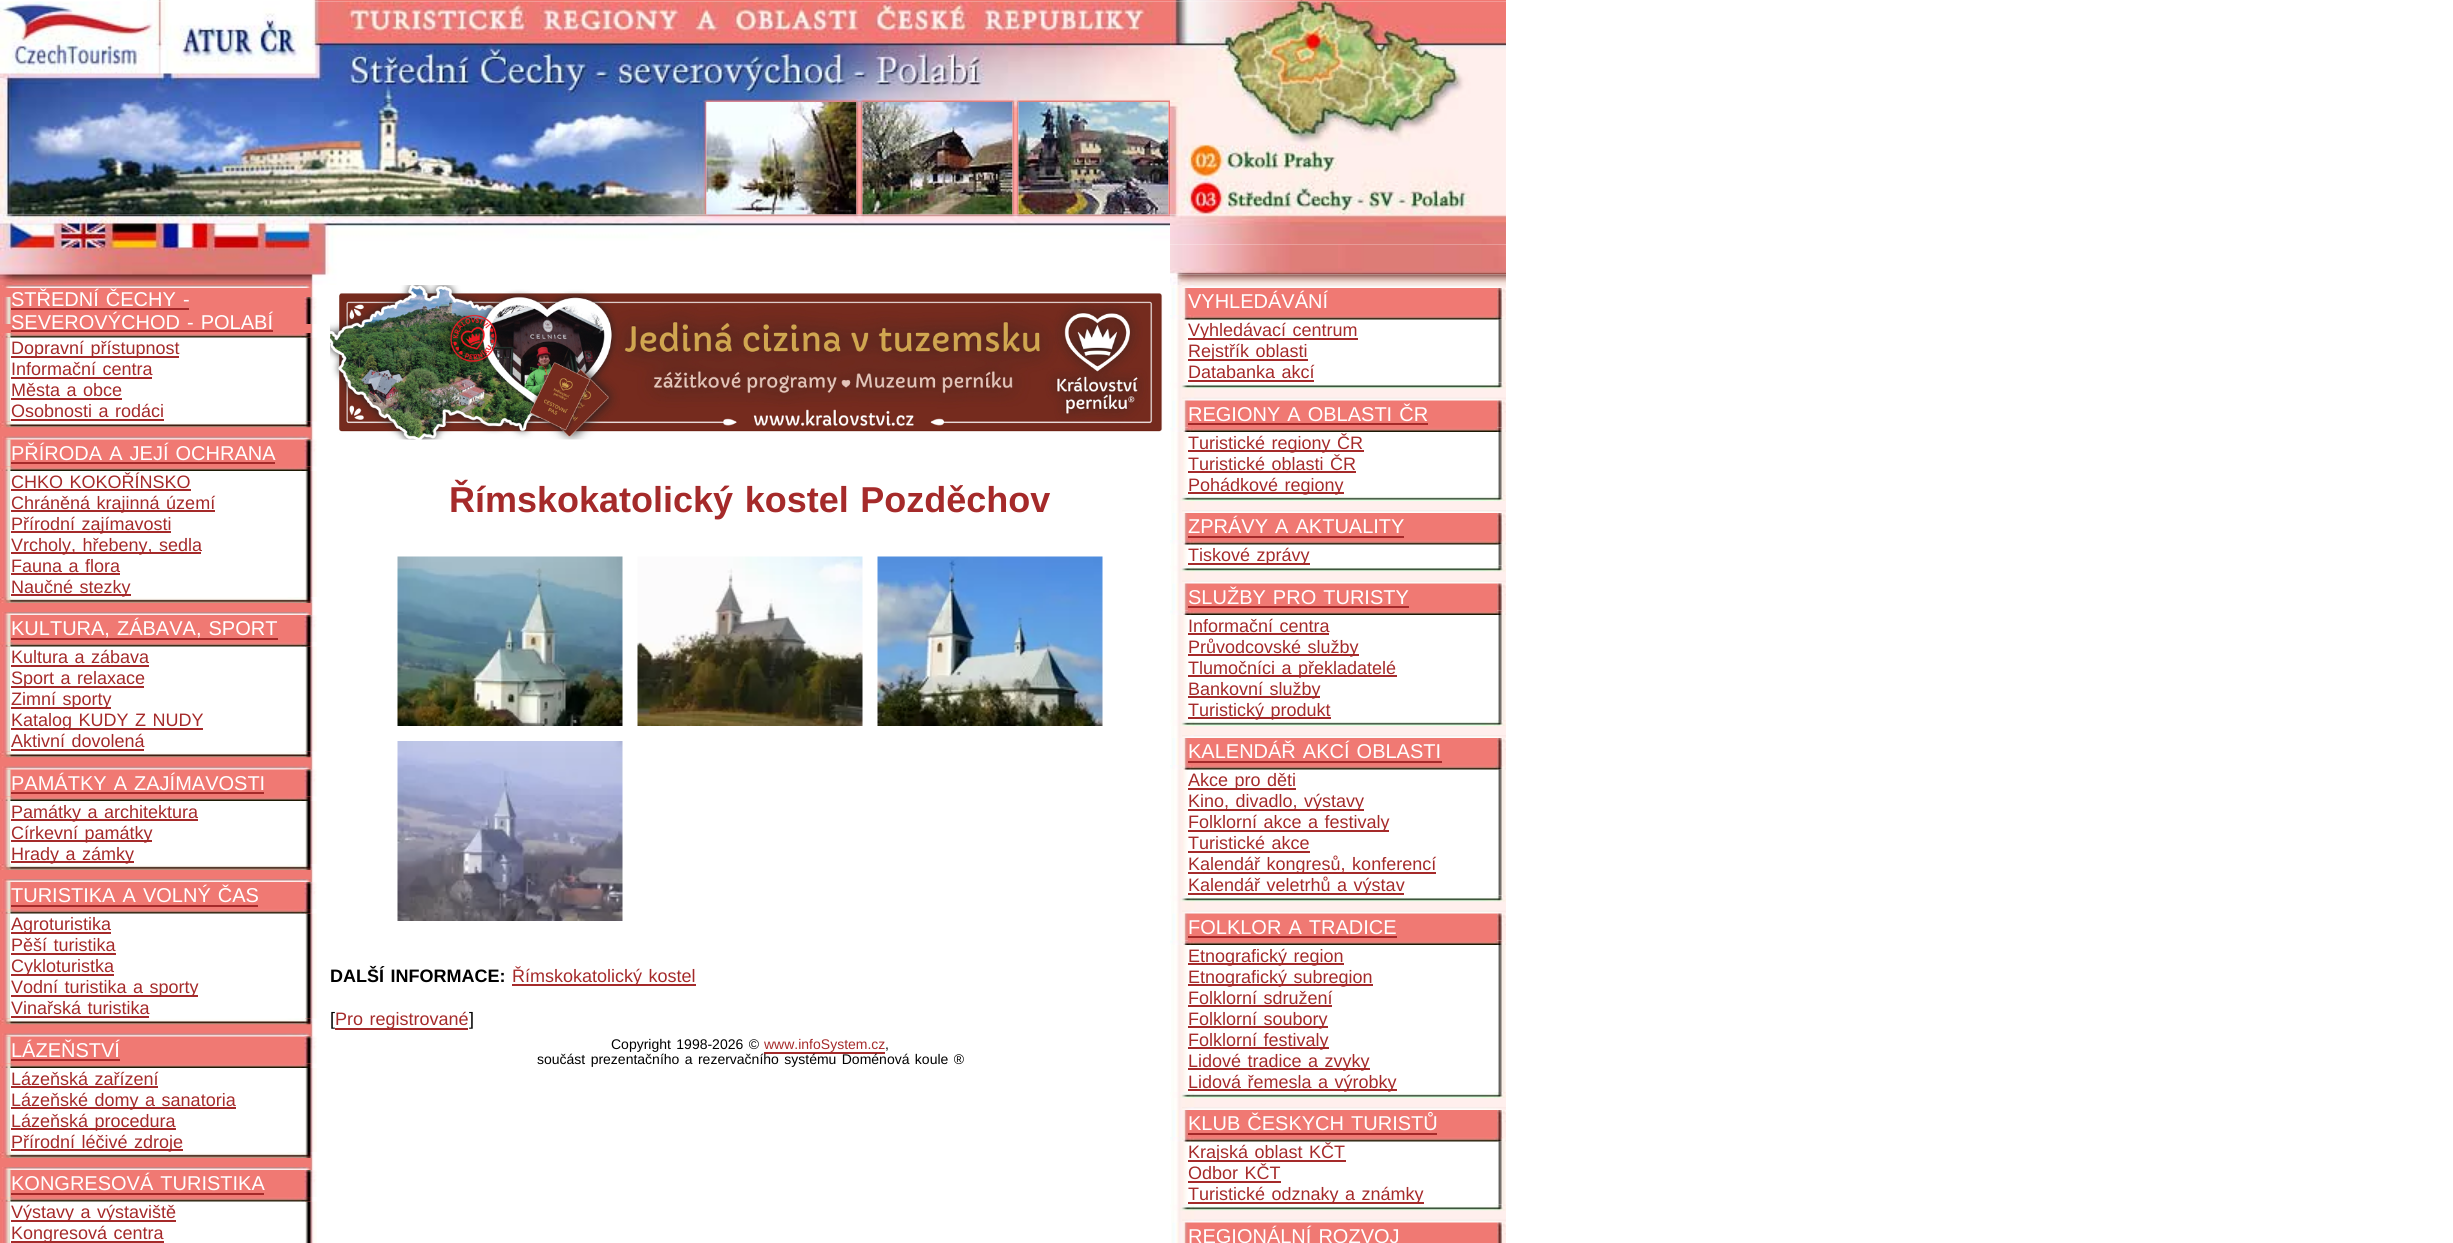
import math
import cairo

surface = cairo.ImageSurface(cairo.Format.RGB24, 2453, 1243)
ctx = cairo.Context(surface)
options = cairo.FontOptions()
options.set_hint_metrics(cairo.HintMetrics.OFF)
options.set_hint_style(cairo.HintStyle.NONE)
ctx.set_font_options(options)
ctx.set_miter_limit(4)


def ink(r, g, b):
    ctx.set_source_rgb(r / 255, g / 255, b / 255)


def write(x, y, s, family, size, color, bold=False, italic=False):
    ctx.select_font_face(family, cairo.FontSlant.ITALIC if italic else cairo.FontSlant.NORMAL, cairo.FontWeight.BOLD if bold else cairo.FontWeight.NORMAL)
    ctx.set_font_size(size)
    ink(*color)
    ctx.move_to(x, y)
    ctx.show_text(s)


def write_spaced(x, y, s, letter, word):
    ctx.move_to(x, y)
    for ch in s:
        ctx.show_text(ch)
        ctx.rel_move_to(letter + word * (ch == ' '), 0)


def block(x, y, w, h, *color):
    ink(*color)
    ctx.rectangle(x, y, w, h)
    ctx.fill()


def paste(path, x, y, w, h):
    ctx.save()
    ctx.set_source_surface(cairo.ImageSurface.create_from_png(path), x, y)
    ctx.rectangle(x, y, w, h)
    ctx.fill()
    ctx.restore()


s1 = dict(family="Liberation Sans", size=18, color=(165, 42, 42))
s2 = dict(family="Liberation Sans", size=20, color=(255, 255, 255))
s3 = dict(family="Liberation Sans", size=18, color=(0, 0, 0))
s4 = dict(family="Liberation Sans", size=14, color=(165, 42, 42))
s5 = dict(family="Liberation Sans", size=14, color=(0, 0, 0))

ink(255, 255, 255)
ctx.paint()
paste("pic1.png", 147, 0, 1359, 2)
paste("pic2.png", 0, 1, 1170, 101)
paste("pic3.png", 1170, 1, 336, 214)
paste("pic4.png", 0, 102, 707, 113)
paste("pic5.png", 706, 102, 151, 113)
paste("pic6.png", 856, 102, 7, 113)
paste("pic7.png", 862, 102, 151, 113)
paste("pic8.png", 1012, 102, 7, 113)
paste("pic9.png", 1018, 102, 151, 113)
paste("pic10.png", 1168, 102, 2, 113)
paste("pic11.png", 0, 214, 1170, 71)
paste("pic12.png", 1170, 214, 168, 31)
paste("pic13.png", 1338, 214, 168, 31)
paste("pic14.png", 1170, 244, 168, 31)
paste("pic15.png", 1338, 244, 168, 31)
paste("pic16.png", 1170, 274, 336, 11)
paste("pic17.png", 0, 285, 314, 958)
paste("pic18.png", 2, 285, 310, 3)
paste("pic19.png", 2, 297, 9, 27)
ctx.select_font_face("Liberation Sans")
ctx.set_font_size(20)
ink(255, 255, 255)
write_spaced(11, 306, "STŘEDNÍ ČECHY -", 0, 1.5)
block(11, 308, 178, 2, 165, 42, 42)
ink(255, 255, 255)
write_spaced(11, 329, "SEVEROVÝCHOD - POLABÍ", 0, 1.5)
block(11, 330, 262, 2, 165, 42, 42)
paste("pic20.png", 304, 297, 13, 27)
paste("pic22.png", 2, 337, 8, 85)
block(10, 337, 295, 85, 255, 255, 255)
paste("pic23.png", 305, 337, 12, 85)
paste("pic21.png", 0, 333, 313, 5)
block(11, 356, 168, 2, 165, 42, 42)
ctx.set_font_size(18)
write_spaced(11, 354, "Dopravní přístupnost", 0, 1.5)
write_spaced(11, 375, "Informační centra", 0, 1.5)
block(11, 377, 141, 2, 165, 42, 42)
write_spaced(11, 396, "Města a obce", 0, 1.5)
block(11, 398, 111, 2, 165, 42, 42)
write_spaced(11, 417, "Osobnosti a rodáci", 0, 1.5)
block(11, 419, 153, 2, 165, 42, 42)
paste("pic24.png", 0, 421, 313, 7)
paste("pic25.png", 2, 427, 310, 9)
paste("pic26.png", 2, 436, 310, 4)
paste("pic27.png", 2, 439, 9, 28)
ctx.set_font_size(20)
ink(255, 255, 255)
write_spaced(11, 460, "PŘÍRODA A JEJÍ OCHRANA", 0, 1.5)
block(11, 462, 264, 2, 165, 42, 42)
paste("pic28.png", 304, 439, 13, 28)
paste("pic29.png", 0, 466, 313, 5)
paste("pic30.png", 2, 471, 8, 126)
block(10, 471, 295, 126, 255, 255, 255)
ctx.set_font_size(18)
ink(165, 42, 42)
write_spaced(11, 488, "CHKO KOKOŘÍNSKO", 0, 1.5)
block(11, 489, 180, 2, 165, 42, 42)
block(11, 510, 204, 2, 165, 42, 42)
write_spaced(11, 509, "Chráněná krajinná území", 0, 1.5)
block(11, 531, 160, 2, 165, 42, 42)
write_spaced(11, 530, "Přírodní zajímavosti", 0, 1.5)
block(11, 552, 190, 2, 165, 42, 42)
write_spaced(11, 551, "Vrcholy, hřebeny, sedla", 0, 1.5)
write_spaced(11, 572, "Fauna a flora", 0, 1.5)
block(11, 573, 109, 2, 165, 42, 42)
block(11, 594, 120, 2, 165, 42, 42)
write_spaced(11, 593, "Naučné stezky", 0, 1.5)
paste("pic31.png", 305, 471, 12, 126)
paste("pic32.png", 0, 597, 313, 6)
block(311, 603, 1, 9, 223, 144, 140)
paste("pic18.png", 2, 612, 310, 3)
paste("pic19.png", 2, 615, 9, 27)
ctx.set_font_size(20)
ink(255, 255, 255)
write_spaced(11, 635, "KULTURA, ZÁBAVA, SPORT", 0, 1.5)
block(11, 638, 267, 2, 165, 42, 42)
paste("pic20.png", 304, 615, 13, 27)
paste("pic33.png", 2, 646, 8, 106)
block(10, 646, 295, 106, 255, 255, 255)
paste("pic34.png", 305, 646, 12, 106)
paste("pic21.png", 0, 642, 313, 5)
ctx.set_font_size(18)
ink(165, 42, 42)
write_spaced(11, 663, "Kultura a zábava", 0, 1.5)
block(11, 665, 138, 2, 165, 42, 42)
block(11, 686, 133, 2, 165, 42, 42)
write_spaced(11, 684, "Sport a relaxace", 0, 1.5)
block(11, 707, 100, 2, 165, 42, 42)
write_spaced(11, 705, "Zimní sporty", 0, 1.5)
block(11, 728, 192, 2, 165, 42, 42)
write_spaced(11, 726, "Katalog KUDY Z NUDY", 0, 1.5)
write_spaced(11, 747, "Aktivní dovolená", 0, 1.5)
block(11, 749, 133, 2, 165, 42, 42)
paste("pic24.png", 0, 751, 313, 7)
paste("pic25.png", 2, 757, 310, 9)
paste("pic26.png", 2, 766, 310, 4)
paste("pic27.png", 2, 769, 9, 28)
ctx.set_font_size(20)
ink(255, 255, 255)
write_spaced(11, 790, "PAMÁTKY A ZAJÍMAVOSTI", 0, 1.5)
block(11, 792, 253, 2, 165, 42, 42)
paste("pic28.png", 304, 769, 13, 28)
paste("pic29.png", 0, 796, 313, 5)
paste("pic35.png", 2, 801, 8, 63)
block(10, 801, 295, 63, 255, 255, 255)
block(11, 819, 187, 2, 165, 42, 42)
ctx.set_font_size(18)
write_spaced(11, 818, "Památky a architektura", 0, 1.5)
block(11, 840, 141, 2, 165, 42, 42)
write_spaced(11, 839, "Církevní památky", 0, 1.5)
block(11, 861, 123, 2, 165, 42, 42)
write_spaced(11, 860, "Hrady a zámky", 0, 1.5)
paste("pic36.png", 305, 801, 12, 63)
paste("pic32.png", 0, 864, 313, 6)
block(311, 870, 1, 9, 223, 144, 140)
paste("pic18.png", 2, 879, 310, 3)
paste("pic19.png", 2, 882, 9, 27)
ctx.set_font_size(20)
ink(255, 255, 255)
write_spaced(11, 902, "TURISTIKA A VOLNÝ ČAS", 0, 1.5)
block(11, 905, 247, 2, 165, 42, 42)
paste("pic20.png", 304, 882, 13, 27)
paste("pic33.png", 2, 913, 8, 106)
block(10, 913, 295, 106, 255, 255, 255)
paste("pic34.png", 305, 913, 12, 106)
paste("pic21.png", 0, 909, 313, 5)
block(11, 932, 100, 2, 165, 42, 42)
write(11, 930, "Agroturistika", **s1)
write_spaced(11, 951, "Pěší turistika", 0, 1.5)
block(11, 953, 105, 2, 165, 42, 42)
block(11, 974, 103, 2, 165, 42, 42)
write(11, 972, "Cykloturistka", **s1)
block(11, 995, 187, 2, 165, 42, 42)
write_spaced(11, 993, "Vodní turistika a sporty", 0, 1.5)
write_spaced(11, 1014, "Vinařská turistika", 0, 1.5)
block(11, 1016, 138, 2, 165, 42, 42)
paste("pic24.png", 0, 1018, 313, 7)
paste("pic25.png", 2, 1024, 310, 9)
paste("pic26.png", 2, 1033, 310, 4)
paste("pic27.png", 2, 1036, 9, 28)
write(11, 1057, "LÁZEŇSTVÍ", **s2)
block(11, 1059, 109, 2, 165, 42, 42)
paste("pic28.png", 304, 1036, 13, 28)
paste("pic29.png", 0, 1063, 313, 5)
paste("pic37.png", 2, 1068, 8, 84)
block(10, 1068, 295, 84, 255, 255, 255)
ctx.set_font_size(18)
ink(165, 42, 42)
write_spaced(11, 1085, "Lázeňská zařízení", 0, 1.5)
block(11, 1086, 147, 2, 165, 42, 42)
block(11, 1107, 225, 2, 165, 42, 42)
write_spaced(11, 1106, "Lázeňské domy a sanatoria", 0, 1.5)
block(11, 1128, 165, 2, 165, 42, 42)
write_spaced(11, 1127, "Lázeňská procedura", 0, 1.5)
block(11, 1149, 172, 2, 165, 42, 42)
write_spaced(11, 1148, "Přírodní léčivé zdroje", 0, 1.5)
paste("pic38.png", 305, 1068, 12, 84)
paste("pic32.png", 0, 1152, 313, 6)
block(311, 1158, 1, 9, 223, 144, 140)
paste("pic18.png", 2, 1167, 310, 3)
paste("pic19.png", 2, 1170, 9, 27)
ctx.set_font_size(20)
ink(255, 255, 255)
write_spaced(11, 1190, "KONGRESOVÁ TURISTIKA", 0, 1.5)
block(11, 1193, 253, 2, 165, 42, 42)
paste("pic20.png", 304, 1170, 13, 27)
paste("pic39.png", 2, 1201, 8, 42)
block(10, 1201, 295, 42, 255, 255, 255)
paste("pic40.png", 305, 1201, 12, 42)
paste("pic21.png", 0, 1197, 313, 5)
block(11, 1220, 165, 2, 165, 42, 42)
ctx.set_font_size(18)
write_spaced(11, 1218, "Výstavy a výstaviště", 0, 1.5)
block(11, 1241, 153, 2, 165, 42, 42)
write_spaced(11, 1239, "Kongresová centra", 0, 1.5)
paste("pic41.png", 330, 285, 833, 155)
ctx.select_font_face("Liberation Sans", cairo.FontSlant.NORMAL, cairo.FontWeight.BOLD)
ctx.set_font_size(36)
write_spaced(449, 512, "Římskokatolický kostel Pozděchov", 0, 1.5)
paste("pic42.png", 397, 556, 226, 170)
paste("pic43.png", 637, 556, 226, 170)
paste("pic44.png", 877, 556, 226, 170)
paste("pic45.png", 397, 741, 226, 180)
ctx.set_font_size(18)
ink(0, 0, 0)
write_spaced(330, 982, "DALŠÍ INFORMACE:", 0, 1.5)
block(512, 984, 184, 2, 165, 42, 42)
ctx.select_font_face("Liberation Sans")
write_spaced(512, 982, "Římskokatolický kostel", 0, 1.5)
write(330, 1025, "[", **s3)
block(335, 1028, 133, 2, 165, 42, 42)
write_spaced(335, 1025, "Pro registrované", 0, 1.5)
write(469, 1025, "]", **s3)
ctx.set_font_size(14)
write_spaced(611, 1049, "Copyright 1998-2026 ©", 0, 1.5)
write(764, 1049, "www.infoSystem.cz", **s4)
write(885, 1049, ",", **s5)
block(764, 1052, 121, 2, 165, 42, 42)
ink(0, 0, 0)
write_spaced(537, 1064, "součást prezentačního a rezervačního systému Doménová koule ®", 0, 1.5)
paste("pic46.png", 1171, 285, 335, 958)
paste("pic47.png", 1182, 285, 324, 3)
paste("pic48.png", 1172, 288, 16, 27)
block(1188, 288, 309, 27, 240, 121, 115)
write(1188, 308, "VYHLEDÁVÁNÍ", **s2)
paste("pic49.png", 1497, 288, 9, 27)
paste("pic51.png", 1183, 319, 5, 64)
block(1188, 319, 309, 64, 255, 255, 255)
paste("pic52.png", 1497, 319, 9, 64)
paste("pic50.png", 1170, 315, 336, 5)
block(1188, 338, 170, 2, 165, 42, 42)
ctx.set_font_size(18)
write_spaced(1188, 336, "Vyhledávací centrum", 0, 1.5)
block(1188, 359, 120, 2, 165, 42, 42)
write_spaced(1188, 357, "Rejstřík oblasti", 0, 1.5)
write_spaced(1188, 378, "Databanka akcí", 0, 1.5)
block(1188, 380, 126, 2, 165, 42, 42)
paste("pic53.png", 1170, 382, 336, 7)
paste("pic54.png", 1183, 388, 317, 1)
block(1188, 400, 309, 28, 240, 121, 115)
paste("pic55.png", 1182, 397, 324, 4)
paste("pic56.png", 1172, 400, 16, 28)
ctx.set_font_size(20)
ink(255, 255, 255)
write_spaced(1188, 421, "REGIONY A OBLASTI ČR", 0, 1.5)
block(1188, 423, 240, 2, 165, 42, 42)
paste("pic57.png", 1497, 400, 9, 28)
paste("pic58.png", 1170, 427, 336, 5)
paste("pic59.png", 1183, 432, 5, 63)
block(1188, 432, 309, 63, 255, 255, 255)
block(1188, 450, 176, 2, 165, 42, 42)
ctx.set_font_size(18)
write_spaced(1188, 449, "Turistické regiony ČR", 0, 1.5)
write_spaced(1188, 470, "Turistické oblasti ČR", 0, 1.5)
block(1188, 471, 168, 2, 165, 42, 42)
block(1188, 492, 156, 2, 165, 42, 42)
write_spaced(1188, 491, "Pohádkové regiony", 0, 1.5)
paste("pic60.png", 1497, 432, 9, 63)
paste("pic61.png", 1170, 495, 336, 6)
paste("pic47.png", 1182, 510, 324, 3)
paste("pic48.png", 1172, 513, 16, 27)
block(1188, 513, 309, 27, 240, 121, 115)
ctx.set_font_size(20)
ink(255, 255, 255)
write_spaced(1188, 533, "ZPRÁVY A AKTUALITY", 0, 1.5)
block(1188, 536, 216, 2, 165, 42, 42)
paste("pic49.png", 1497, 513, 9, 27)
paste("pic62.png", 1183, 544, 5, 22)
block(1188, 544, 309, 22, 255, 255, 255)
paste("pic63.png", 1497, 544, 9, 22)
paste("pic50.png", 1170, 540, 336, 5)
block(1188, 563, 122, 2, 165, 42, 42)
ctx.set_font_size(18)
write_spaced(1188, 561, "Tiskové zprávy", 0, 1.5)
paste("pic53.png", 1170, 565, 336, 7)
paste("pic54.png", 1183, 571, 317, 1)
block(1188, 583, 309, 28, 240, 121, 115)
paste("pic55.png", 1182, 580, 324, 4)
paste("pic56.png", 1172, 583, 16, 28)
ctx.set_font_size(20)
ink(255, 255, 255)
write_spaced(1188, 604, "SLUŽBY PRO TURISTY", 0, 1.5)
block(1188, 606, 221, 2, 165, 42, 42)
paste("pic57.png", 1497, 583, 9, 28)
paste("pic58.png", 1170, 610, 336, 5)
paste("pic64.png", 1183, 615, 5, 105)
block(1188, 615, 309, 105, 255, 255, 255)
ctx.set_font_size(18)
ink(165, 42, 42)
write_spaced(1188, 632, "Informační centra", 0, 1.5)
block(1188, 633, 141, 2, 165, 42, 42)
block(1188, 654, 171, 2, 165, 42, 42)
write_spaced(1188, 653, "Průvodcovské služby", 0, 1.5)
block(1188, 675, 209, 2, 165, 42, 42)
write_spaced(1188, 674, "Tlumočníci a překladatelé", 0, 1.5)
block(1188, 696, 132, 2, 165, 42, 42)
write_spaced(1188, 695, "Bankovní služby", 0, 1.5)
block(1188, 717, 143, 2, 165, 42, 42)
write_spaced(1188, 716, "Turistický produkt", 0, 1.5)
paste("pic65.png", 1497, 615, 9, 105)
paste("pic61.png", 1170, 720, 336, 6)
paste("pic47.png", 1182, 735, 324, 3)
paste("pic48.png", 1172, 738, 16, 27)
block(1188, 738, 309, 27, 240, 121, 115)
ctx.set_font_size(20)
ink(255, 255, 255)
write_spaced(1188, 758, "KALENDÁŘ AKCÍ OBLASTI", 0, 1.5)
block(1188, 761, 254, 2, 165, 42, 42)
paste("pic49.png", 1497, 738, 9, 27)
paste("pic66.png", 1183, 769, 5, 127)
block(1188, 769, 309, 127, 255, 255, 255)
paste("pic67.png", 1497, 769, 9, 127)
paste("pic50.png", 1170, 765, 336, 5)
block(1188, 788, 108, 2, 165, 42, 42)
ctx.set_font_size(18)
write_spaced(1188, 786, "Akce pro děti", 0, 1.5)
block(1188, 809, 176, 2, 165, 42, 42)
write_spaced(1188, 807, "Kino, divadlo, výstavy", 0, 1.5)
block(1188, 830, 201, 2, 165, 42, 42)
write_spaced(1188, 828, "Folklorní akce a festivaly", 0, 1.5)
write_spaced(1188, 849, "Turistické akce", 0, 1.5)
block(1188, 851, 122, 2, 165, 42, 42)
block(1188, 872, 248, 2, 165, 42, 42)
write_spaced(1188, 870, "Kalendář kongresů, konferencí", 0, 1.5)
block(1188, 893, 216, 2, 165, 42, 42)
write_spaced(1188, 891, "Kalendář veletrhů a výstav", 0, 1.5)
paste("pic53.png", 1170, 895, 336, 7)
paste("pic54.png", 1183, 901, 317, 1)
block(1188, 913, 309, 28, 240, 121, 115)
paste("pic55.png", 1182, 910, 324, 4)
paste("pic56.png", 1172, 913, 16, 28)
ctx.set_font_size(20)
ink(255, 255, 255)
write_spaced(1188, 934, "FOLKLOR A TRADICE", 0, 1.5)
block(1188, 936, 209, 2, 165, 42, 42)
paste("pic57.png", 1497, 913, 9, 28)
paste("pic58.png", 1170, 940, 336, 5)
paste("pic68.png", 1183, 945, 5, 147)
block(1188, 945, 309, 147, 255, 255, 255)
block(1188, 963, 156, 2, 165, 42, 42)
ctx.set_font_size(18)
write_spaced(1188, 962, "Etnografický region", 0, 1.5)
block(1188, 984, 185, 2, 165, 42, 42)
write_spaced(1188, 983, "Etnografický subregion", 0, 1.5)
write_spaced(1188, 1004, "Folklorní sdružení", 0, 1.5)
block(1188, 1005, 144, 2, 165, 42, 42)
block(1188, 1026, 140, 2, 165, 42, 42)
write_spaced(1188, 1025, "Folklorní soubory", 0, 1.5)
block(1188, 1047, 141, 2, 165, 42, 42)
write_spaced(1188, 1046, "Folklorní festivaly", 0, 1.5)
block(1188, 1068, 182, 2, 165, 42, 42)
write_spaced(1188, 1067, "Lidové tradice a zvyky", 0, 1.5)
block(1188, 1089, 209, 2, 165, 42, 42)
write_spaced(1188, 1088, "Lidová řemesla a výrobky", 0, 1.5)
paste("pic69.png", 1497, 945, 9, 147)
paste("pic61.png", 1170, 1092, 336, 6)
paste("pic47.png", 1182, 1107, 324, 3)
paste("pic48.png", 1172, 1110, 16, 27)
block(1188, 1110, 309, 27, 240, 121, 115)
ctx.set_font_size(20)
ink(255, 255, 255)
write_spaced(1188, 1130, "KLUB ČESKYCH TURISTŮ", 0, 1.5)
block(1188, 1133, 249, 2, 165, 42, 42)
paste("pic49.png", 1497, 1110, 9, 27)
paste("pic51.png", 1183, 1141, 5, 64)
block(1188, 1141, 309, 64, 255, 255, 255)
paste("pic52.png", 1497, 1141, 9, 64)
paste("pic50.png", 1170, 1137, 336, 5)
block(1188, 1160, 158, 2, 165, 42, 42)
ctx.set_font_size(18)
write_spaced(1188, 1158, "Krajská oblast KČT", 0, 1.5)
write_spaced(1188, 1179, "Odbor KČT", 0, 1.5)
block(1188, 1181, 93, 2, 165, 42, 42)
block(1188, 1202, 236, 2, 165, 42, 42)
write_spaced(1188, 1200, "Turistické odznaky a známky", 0, 1.5)
paste("pic53.png", 1170, 1204, 336, 7)
paste("pic54.png", 1183, 1210, 317, 1)
block(1188, 1222, 309, 21, 240, 121, 115)
paste("pic55.png", 1182, 1219, 324, 4)
paste("pic70.png", 1172, 1222, 16, 21)
ctx.set_font_size(20)
ink(255, 255, 255)
write_spaced(1188, 1243, "REGIONÁLNÍ ROZVOJ", 0, 1.5)
paste("pic71.png", 1497, 1222, 9, 21)
surface.write_to_png("screenshot.png")
